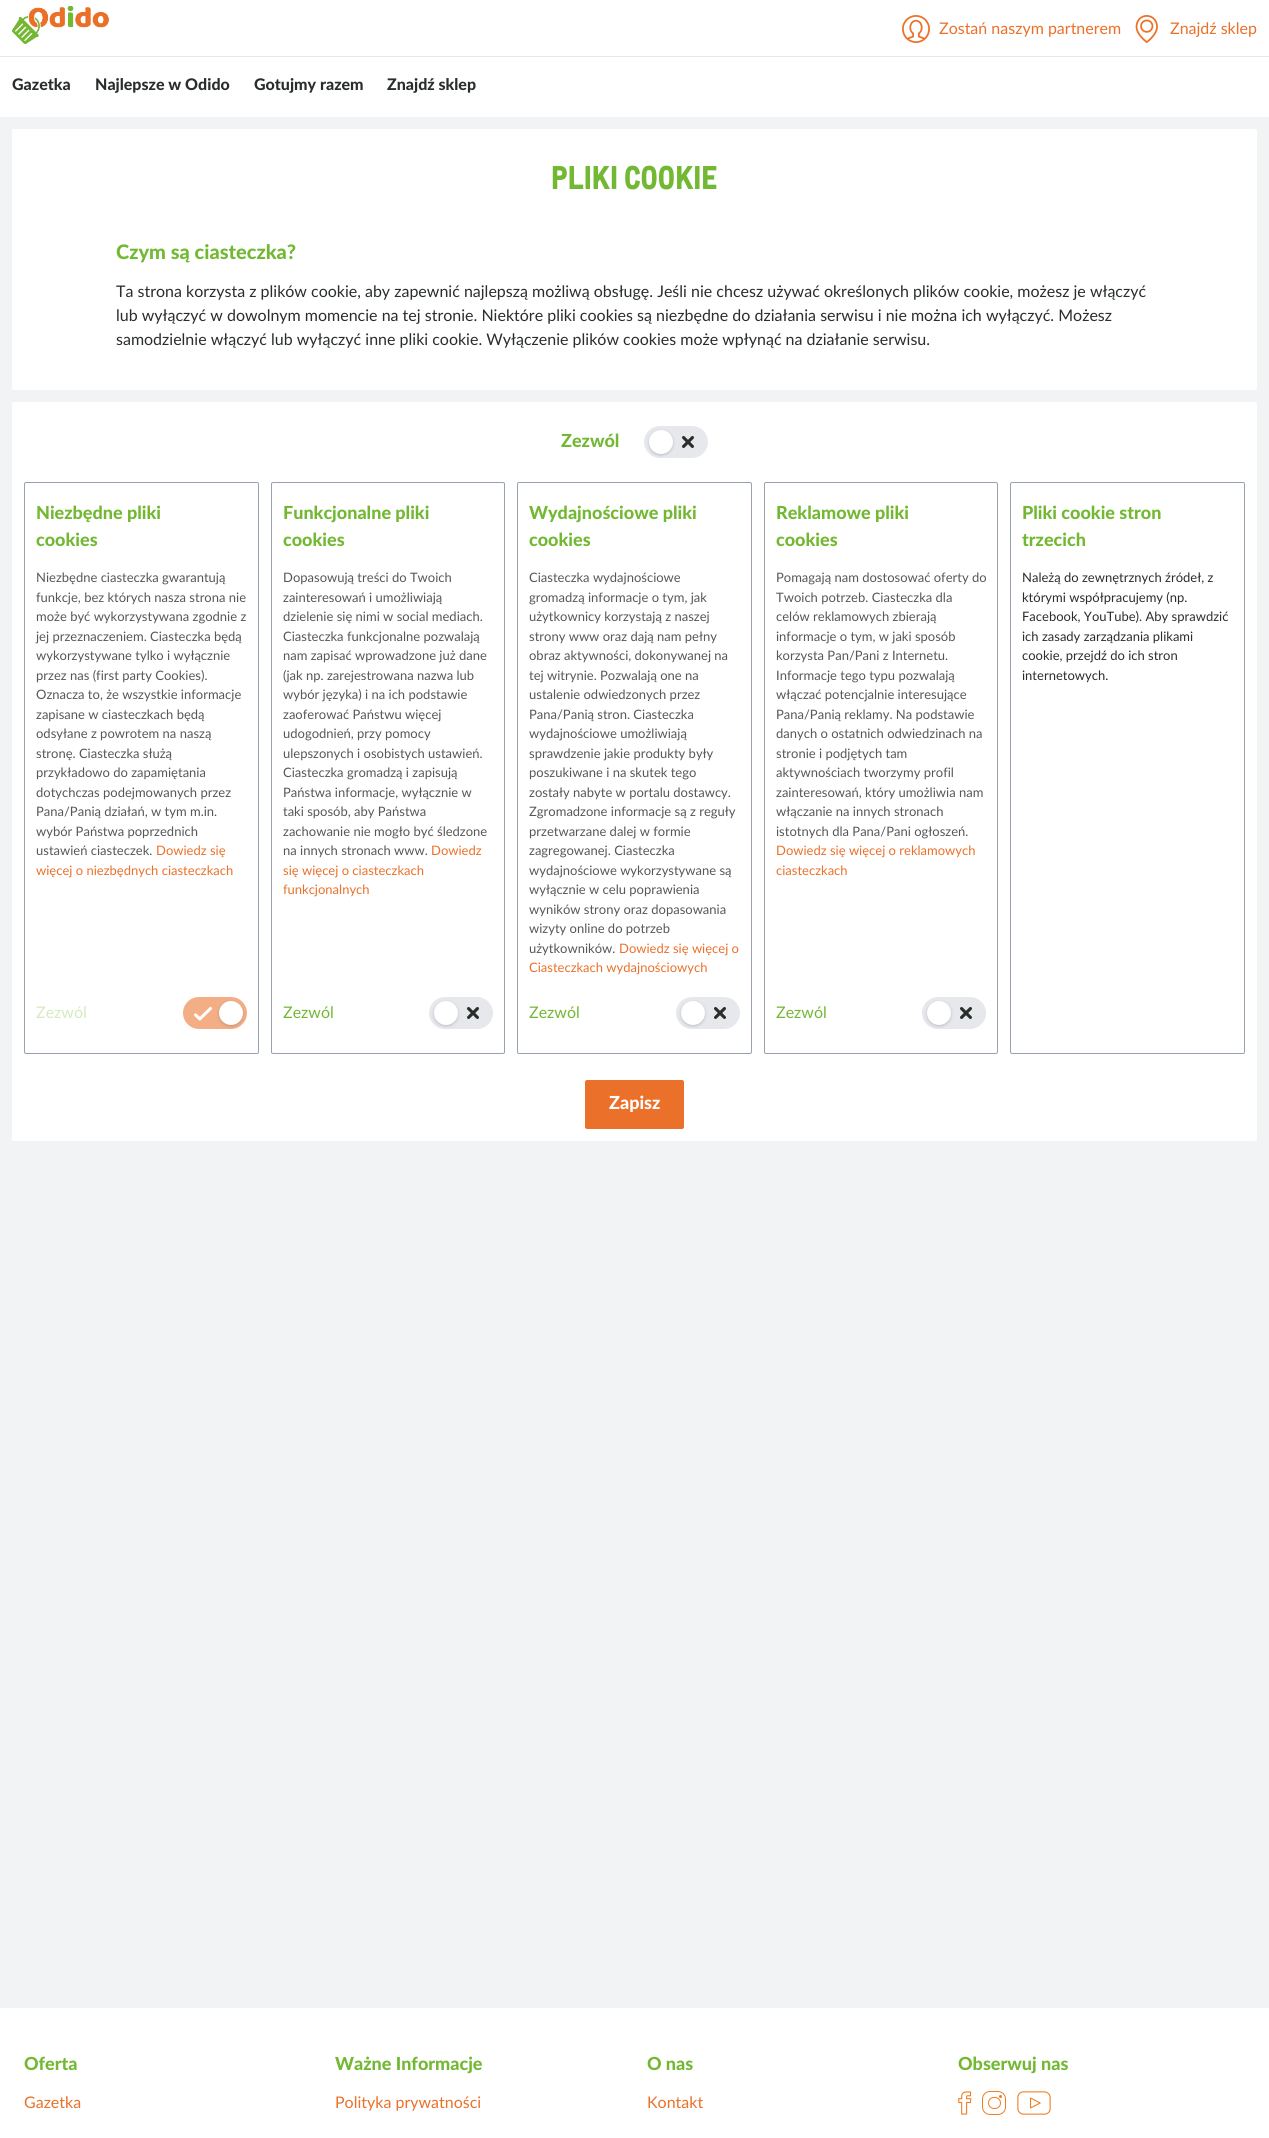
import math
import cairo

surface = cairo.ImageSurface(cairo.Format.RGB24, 1269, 2138)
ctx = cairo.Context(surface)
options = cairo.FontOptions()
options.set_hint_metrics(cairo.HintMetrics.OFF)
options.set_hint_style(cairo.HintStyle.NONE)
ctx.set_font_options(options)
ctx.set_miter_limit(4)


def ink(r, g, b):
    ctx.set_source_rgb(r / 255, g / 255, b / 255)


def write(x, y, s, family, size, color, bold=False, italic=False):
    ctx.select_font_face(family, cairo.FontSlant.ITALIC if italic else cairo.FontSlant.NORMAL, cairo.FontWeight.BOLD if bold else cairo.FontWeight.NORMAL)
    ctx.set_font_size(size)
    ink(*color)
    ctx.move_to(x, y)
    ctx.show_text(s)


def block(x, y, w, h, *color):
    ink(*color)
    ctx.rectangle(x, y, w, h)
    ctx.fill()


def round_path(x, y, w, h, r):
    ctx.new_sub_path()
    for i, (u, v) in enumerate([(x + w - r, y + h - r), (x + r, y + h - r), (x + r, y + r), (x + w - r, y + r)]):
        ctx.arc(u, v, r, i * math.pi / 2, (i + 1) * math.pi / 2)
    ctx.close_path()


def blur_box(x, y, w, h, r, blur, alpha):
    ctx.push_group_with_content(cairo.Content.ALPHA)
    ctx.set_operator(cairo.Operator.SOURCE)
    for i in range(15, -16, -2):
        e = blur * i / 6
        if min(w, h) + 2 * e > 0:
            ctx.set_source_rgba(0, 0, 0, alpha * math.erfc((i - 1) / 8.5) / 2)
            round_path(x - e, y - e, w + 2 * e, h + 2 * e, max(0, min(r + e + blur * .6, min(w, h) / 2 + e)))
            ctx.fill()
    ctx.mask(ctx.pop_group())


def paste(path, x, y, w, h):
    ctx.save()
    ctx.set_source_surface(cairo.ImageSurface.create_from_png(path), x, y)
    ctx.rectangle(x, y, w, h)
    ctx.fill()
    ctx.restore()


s1 = dict(family="Lato", size=16, color=(235, 112, 41))
s2 = dict(family="Lato Black", size=16, color=(41, 46, 43))
s3 = dict(family="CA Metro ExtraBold", size=32, color=(115, 184, 51))
s4 = dict(family="Lato Black", size=20, color=(115, 184, 51))
s5 = dict(family="Lato", size=16, color=(41, 46, 43))
s6 = dict(family="Lato Black", size=18, color=(115, 184, 51))
s7 = dict(family="Lato", size=13, color=(87, 87, 87))
s8 = dict(family="Lato", size=13, color=(235, 112, 41))
s9 = dict(family="Lato", size=16, color=(213, 234, 194))
s10 = dict(family="Lato", size=16, color=(115, 184, 51))
s11 = dict(family="Lato", size=13, color=(41, 46, 43))
s12 = dict(family="Lato Black", size=18, color=(255, 255, 255))

ink(242, 243, 245)
ctx.paint()
block(0, 0, 1269, 56, 255, 255, 255)
paste("pic1.png", 12, 6, 97, 38)
paste("pic2.png", 902, 15, 28, 28)
write(939, 34, "Zostań naszym partnerem", **s1)
paste("pic3.png", 1135, 15, 23, 28)
write(1170, 34, "Znajdź sklep", **s1)
block(0, 56, 1269, 1, 230, 232, 235)
block(0, 57, 1269, 60, 255, 255, 255)
write(12, 90, "Gazetka", **s2)
write(95, 90, "Najlepsze w Odido", **s2)
write(254, 90, "Gotujmy razem", **s2)
write(387, 90, "Znajdź sklep", **s2)
ink(255, 255, 255)
round_path(12, 129, 1245, 261, 2)
ctx.fill()
write(551, 189, "PLIKI COOKIE", **s3)
write(116, 259, "Czym są ciasteczka?", **s4)
write(116, 297, "Ta strona korzysta z plików cookie, aby zapewnić najlepszą możliwą obsługę. Jeśli nie chcesz używać określonych plików cookie, możesz je włączyć", **s5)
write(116, 321, "lub wyłączyć w dowolnym momencie na tej stronie. Niektóre pliki cookies są niezbędne do działania serwisu i nie można ich wyłączyć. Możesz", **s5)
write(116, 345, "samodzielnie włączyć lub wyłączyć inne pliki cookie. Wyłączenie plików cookies może wpłynąć na działanie serwisu.", **s5)
ink(255, 255, 255)
round_path(12, 402, 1245, 739, 2)
ctx.fill()
write(561, 447, "Zezwól", **s6)
ink(230, 232, 235)
round_path(644, 426, 64, 32, 16)
ctx.fill()
ink(0, 20, 50)
blur_box(649, 431, 24, 24, 12, 1.5, 0.2)
ink(255, 255, 255)
ctx.arc(661, 442, 12, 0, 2 * math.pi)
ctx.fill()
paste("pic4.png", 682, 436, 12, 12)
round_path(24.5, 482.5, 234, 571, 1.5)
ink(153, 161, 173)
ctx.set_line_width(1)
ctx.stroke()
write(36, 519, "Niezbędne pliki", **s6)
write(36, 546, "cookies", **s6)
write(36, 582, "Niezbędne ciasteczka gwarantują", **s7)
write(36, 602, "funkcje, bez których nasza strona nie", **s7)
write(36, 621, "może być wykorzystywana zgodnie z", **s7)
write(36, 641, "jej przeznaczeniem. Ciasteczka będą", **s7)
write(36, 660, "wykorzystywane tylko i wyłącznie", **s7)
write(36, 680, "przez nas (first party Cookies).", **s7)
write(36, 699, "Oznacza to, że wszystkie informacje", **s7)
write(36, 719, "zapisane w ciasteczkach będą", **s7)
write(36, 738, "odsyłane z powrotem na naszą", **s7)
write(36, 758, "stronę. Ciasteczka służą", **s7)
write(36, 777, "przykładowo do zapamiętania", **s7)
write(36, 797, "dotychczas podejmowanych przez", **s7)
write(36, 816, "Pana/Panią działań, w tym m.in.", **s7)
write(36, 836, "wybór Państwa poprzednich", **s7)
write(36, 855, "ustawień ciasteczek.", **s7)
write(156, 855, "Dowiedz się", **s8)
write(36, 875, "więcej o niezbędnych ciasteczkach", **s8)
write(36, 1018, "Zezwól", **s9)
ink(244, 174, 134)
round_path(183, 997, 64, 32, 16)
ctx.fill()
paste("pic5.png", 194, 1007, 18, 14)
ink(0, 20, 50)
blur_box(219, 1002, 24, 24, 12, 1.5, 0.2)
ink(255, 255, 255)
ctx.arc(231, 1013, 12, 0, 2 * math.pi)
ctx.fill()
round_path(271.5, 482.5, 233, 571, 1.5)
ink(153, 161, 173)
ctx.stroke()
write(283, 519, "Funkcjonalne pliki", **s6)
write(283, 546, "cookies", **s6)
write(283, 582, "Dopasowują treści do Twoich", **s7)
write(283, 602, "zainteresowań i umożliwiają", **s7)
write(283, 621, "dzielenie się nimi w social mediach.", **s7)
write(283, 641, "Ciasteczka funkcjonalne pozwalają", **s7)
write(283, 660, "nam zapisać wprowadzone już dane", **s7)
write(283, 680, "(jak np. zarejestrowana nazwa lub", **s7)
write(283, 699, "wybór języka) i na ich podstawie", **s7)
write(283, 719, "zaoferować Państwu więcej", **s7)
write(283, 738, "udogodnień, przy pomocy", **s7)
write(283, 758, "ulepszonych i osobistych ustawień.", **s7)
write(283, 777, "Ciasteczka gromadzą i zapisują", **s7)
write(283, 797, "Państwa informacje, wyłącznie w", **s7)
write(283, 816, "taki sposób, aby Państwa", **s7)
write(283, 836, "zachowanie nie mogło być śledzone", **s7)
write(283, 855, "na innych stronach www.", **s7)
write(431, 855, "Dowiedz", **s8)
write(283, 875, "się więcej o ciasteczkach", **s8)
write(283, 894, "funkcjonalnych", **s8)
write(283, 1018, "Zezwól", **s10)
ink(230, 232, 235)
round_path(429, 997, 64, 32, 16)
ctx.fill()
ink(0, 20, 50)
blur_box(434, 1002, 24, 24, 12, 1.5, 0.2)
ink(255, 255, 255)
ctx.arc(446, 1013, 12, 0, 2 * math.pi)
ctx.fill()
paste("pic4.png", 467, 1007, 12, 12)
round_path(517.5, 482.5, 234, 571, 1.5)
ink(153, 161, 173)
ctx.stroke()
write(529, 519, "Wydajnościowe pliki", **s6)
write(529, 546, "cookies", **s6)
write(529, 582, "Ciasteczka wydajnościowe", **s7)
write(529, 602, "gromadzą informacje o tym, jak", **s7)
write(529, 621, "użytkownicy korzystają z naszej", **s7)
write(529, 641, "strony www oraz dają nam pełny", **s7)
write(529, 660, "obraz aktywności, dokonywanej na", **s7)
write(529, 680, "tej witrynie. Pozwalają one na", **s7)
write(529, 699, "ustalenie odwiedzonych przez", **s7)
write(529, 719, "Pana/Panią stron. Ciasteczka", **s7)
write(529, 738, "wydajnościowe umożliwiają", **s7)
write(529, 758, "sprawdzenie jakie produkty były", **s7)
write(529, 777, "poszukiwane i na skutek tego", **s7)
write(529, 797, "zostały nabyte w portalu dostawcy.", **s7)
write(529, 816, "Zgromadzone informacje są z reguły", **s7)
write(529, 836, "przetwarzane dalej w formie", **s7)
write(529, 855, "zagregowanej. Ciasteczka", **s7)
write(529, 875, "wydajnościowe wykorzystywane są", **s7)
write(529, 894, "wyłącznie w celu poprawienia", **s7)
write(529, 914, "wyników strony oraz dopasowania", **s7)
write(529, 933, "wizyty online do potrzeb", **s7)
write(529, 953, "użytkowników.", **s7)
write(619, 953, "Dowiedz się więcej o", **s8)
write(529, 972, "Ciasteczkach wydajnościowych", **s8)
write(529, 1018, "Zezwól", **s10)
ink(230, 232, 235)
round_path(676, 997, 64, 32, 16)
ctx.fill()
ink(0, 20, 50)
blur_box(681, 1002, 24, 24, 12, 1.5, 0.2)
ink(255, 255, 255)
ctx.arc(693, 1013, 12, 0, 2 * math.pi)
ctx.fill()
paste("pic4.png", 714, 1007, 12, 12)
round_path(764.5, 482.5, 233, 571, 1.5)
ink(153, 161, 173)
ctx.stroke()
write(776, 519, "Reklamowe pliki", **s6)
write(776, 546, "cookies", **s6)
write(776, 582, "Pomagają nam dostosować oferty do", **s7)
write(776, 602, "Twoich potrzeb. Ciasteczka dla", **s7)
write(776, 621, "celów reklamowych zbierają", **s7)
write(776, 641, "informacje o tym, w jaki sposób", **s7)
write(776, 660, "korzysta Pan/Pani z Internetu.", **s7)
write(776, 680, "Informacje tego typu pozwalają", **s7)
write(776, 699, "włączać potencjalnie interesujące", **s7)
write(776, 719, "Pana/Panią reklamy. Na podstawie", **s7)
write(776, 738, "danych o ostatnich odwiedzinach na", **s7)
write(776, 758, "stronie i podjętych tam", **s7)
write(776, 777, "aktywnościach tworzymy profil", **s7)
write(776, 797, "zainteresowań, który umożliwia nam", **s7)
write(776, 816, "włączanie na innych stronach", **s7)
write(776, 836, "istotnych dla Pana/Pani ogłoszeń.", **s7)
write(776, 855, "Dowiedz się więcej o reklamowych", **s8)
write(776, 875, "ciasteczkach", **s8)
write(776, 1018, "Zezwól", **s10)
ink(230, 232, 235)
round_path(922, 997, 64, 32, 16)
ctx.fill()
ink(0, 20, 50)
blur_box(927, 1002, 24, 24, 12, 1.5, 0.2)
ink(255, 255, 255)
ctx.arc(939, 1013, 12, 0, 2 * math.pi)
ctx.fill()
paste("pic4.png", 960, 1007, 12, 12)
round_path(1010.5, 482.5, 234, 571, 1.5)
ink(153, 161, 173)
ctx.stroke()
write(1022, 519, "Pliki cookie stron", **s6)
write(1022, 546, "trzecich", **s6)
write(1022, 582, "Należą do zewnętrznych źródeł, z", **s11)
write(1022, 602, "którymi współpracujemy (np.", **s11)
write(1022, 621, "Facebook, YouTube). Aby sprawdzić", **s11)
write(1022, 641, "ich zasady zarządzania plikami", **s11)
write(1022, 660, "cookie, przejdź do ich stron", **s11)
write(1022, 680, "internetowych.", **s11)
ink(235, 112, 41)
round_path(586, 1081, 97, 47, 1)
ctx.fill_preserve()
ctx.set_line_width(2)
ctx.stroke()
write(609, 1109, "Zapisz", **s12)
block(0, 2008, 1269, 130, 255, 255, 255)
write(24, 2070, "Oferta", **s6)
write(24, 2108, "Gazetka", **s1)
write(335, 2070, "Ważne Informacje", **s6)
write(335, 2108, "Polityka prywatności", **s1)
write(647, 2070, "O nas", **s6)
write(647, 2108, "Kontakt", **s1)
write(958, 2070, "Obserwuj nas", **s6)
paste("pic6.png", 958, 2091, 14, 24)
round_path(982.5, 2091.5, 23, 23, 7.5)
ink(238, 126, 34)
ctx.set_line_width(1)
ctx.stroke()
round_path(988.5, 2097.5, 12, 11, 5.5)
ctx.stroke()
ctx.arc(1000.5, 2096.5, 1.5, 0, 2 * math.pi)
ctx.fill()
paste("pic7.png", 1017, 2091, 34, 24)
surface.write_to_png("screenshot.png")
